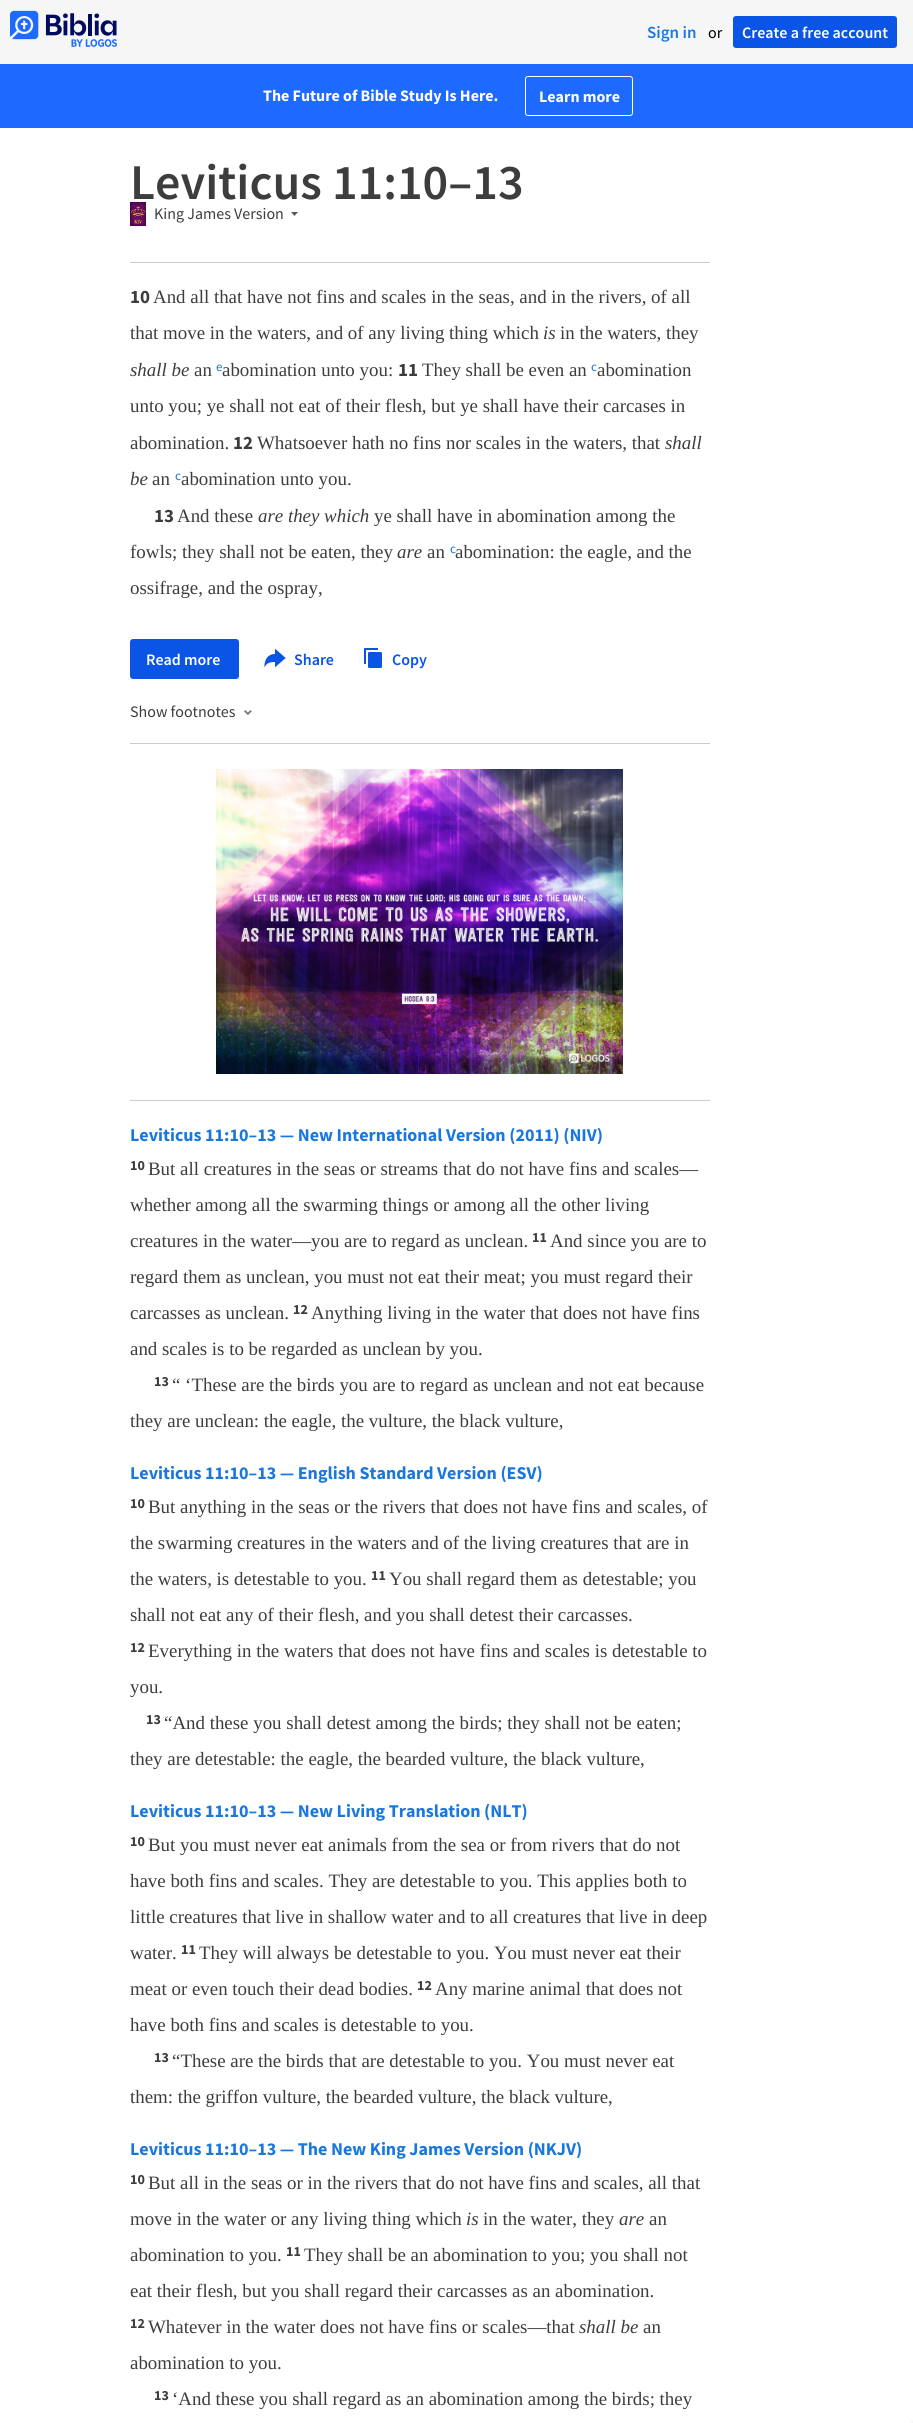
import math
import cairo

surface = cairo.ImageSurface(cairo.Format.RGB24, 913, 2423)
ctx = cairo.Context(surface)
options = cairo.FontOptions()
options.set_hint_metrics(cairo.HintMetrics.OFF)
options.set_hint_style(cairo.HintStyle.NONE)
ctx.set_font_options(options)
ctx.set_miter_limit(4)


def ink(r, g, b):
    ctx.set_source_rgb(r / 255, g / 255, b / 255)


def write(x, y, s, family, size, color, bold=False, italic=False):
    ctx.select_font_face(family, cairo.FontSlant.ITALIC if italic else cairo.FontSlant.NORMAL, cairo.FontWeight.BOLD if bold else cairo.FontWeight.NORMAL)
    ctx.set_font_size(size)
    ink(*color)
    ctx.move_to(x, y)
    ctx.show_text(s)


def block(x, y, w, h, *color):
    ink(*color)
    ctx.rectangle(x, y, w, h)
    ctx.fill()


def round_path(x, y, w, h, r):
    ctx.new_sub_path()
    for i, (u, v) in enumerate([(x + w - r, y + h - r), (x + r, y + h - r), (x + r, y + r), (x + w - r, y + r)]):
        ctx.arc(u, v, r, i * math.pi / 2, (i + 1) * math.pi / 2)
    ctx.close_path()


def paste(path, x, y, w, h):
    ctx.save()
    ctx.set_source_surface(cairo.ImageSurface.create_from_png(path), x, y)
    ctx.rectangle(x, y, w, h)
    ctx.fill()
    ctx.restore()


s1 = dict(family="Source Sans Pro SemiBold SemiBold", size=17, color=(25, 119, 222))
s2 = dict(family="Source Sans Pro", size=16, color=(0, 0, 0))
s3 = dict(family="Source Sans Pro SemiBold SemiBold", size=16, color=(255, 255, 255))
s4 = dict(family="Source Sans Pro", size=16, color=(255, 255, 255), bold=True)
s5 = dict(family="Source Sans Pro SemiBold SemiBold", size=50, color=(61, 61, 61))
s6 = dict(family="Source Sans Pro", size=16, color=(61, 61, 61))
s7 = dict(family="Source Sans Pro", size=18.9, color=(61, 61, 61), bold=True)
s8 = dict(family="Liberation Serif", size=18.9, color=(61, 61, 61))
s9 = dict(family="Liberation Serif", size=18.9, color=(61, 61, 61), italic=True)
s10 = dict(family="Source Sans Pro", size=13, color=(25, 119, 222))
s11 = dict(family="Source Sans Pro SemiBold SemiBold", size=16, color=(10, 85, 230))
s12 = dict(family="Source Sans Pro", size=18, color=(25, 119, 222), bold=True)
s13 = dict(family="Source Sans Pro", size=14, color=(61, 61, 61), bold=True)

ink(246, 246, 246)
ctx.paint()
paste("pic1.png", 10, 10, 107, 37)
write(647, 38, "Sign in", **s1)
write(708, 38, "or", **s2)
ink(10, 85, 230)
round_path(733, 16, 164, 32, 3)
ctx.fill()
write(742, 38, "Create a free account", **s3)
block(0, 64, 913, 64, 30, 106, 254)
write(263, 101, "The Future of Bible Study Is Here.", **s4)
round_path(525.5, 76.5, 107, 39, 2.5)
ctx.set_line_width(1)
ctx.stroke()
write(539, 102, "Learn more", **s4)
round_path(-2, 128, 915, 2295, 4)
ctx.fill()
block(130, 262, 580, 1, 204, 204, 204)
write(130, 199, "Leviticus 11:10–13", **s5)
paste("pic2.png", 130, 202, 16, 24)
write(154, 219, "King James Version", **s6)
ink(88, 88, 88)
ctx.set_fill_rule(cairo.FillRule.EVEN_ODD)
ctx.new_path()
ctx.move_to(294.5, 216)
ctx.line_to(298, 212)
ctx.line_to(291, 212)
ctx.close_path()
ctx.fill()
write(130, 303, "10", **s7)
write(153, 303, "And all that have not fins and scales in the seas, and in the rivers, of all", **s8)
write(130, 339, "that move in the waters, and of any living thing which", **s8)
write(543, 339, "is", **s9)
write(560, 339, "in the waters, they", **s8)
write(130, 376, "shall be", **s9)
write(194, 376, "an", **s8)
write(216, 371, "e", **s10)
write(222, 376, "abomination unto you:", **s8)
write(398, 376, "11", **s7)
write(422, 376, "They shall be even an", **s8)
write(591, 371, "c", **s10)
write(597, 376, "abomination", **s8)
write(130, 412, "unto you; ye shall not eat of their flesh, but ye shall have their carcases in", **s8)
write(130, 449, "abomination.", **s8)
write(233, 449, "12", **s7)
write(257, 449, "Whatsoever hath no fins nor scales in the waters, that", **s8)
write(665, 449, "shall", **s9)
write(130, 485, "be", **s9)
write(152, 485, "an", **s8)
write(175, 480, "c", **s10)
write(181, 485, "abomination unto you.", **s8)
write(154, 522, "13", **s7)
write(177, 522, "And these", **s8)
write(258, 522, "are they which", **s9)
write(374, 522, "ye shall have in abomination among the", **s8)
write(130, 558, "fowls; they shall not be eaten, they", **s8)
write(397, 558, "are", **s9)
write(427, 558, "an", **s8)
write(450, 553, "c", **s10)
write(455, 558, "abomination: the eagle, and the", **s8)
write(130, 594, "ossifrage, and the ospray,", **s8)
ink(10, 85, 230)
round_path(130, 639, 109, 40, 3)
ctx.fill()
write(146, 665, "Read more", **s3)
paste("pic3.png", 264, 648, 22, 20)
write(294, 665, "Share", **s11)
paste("pic4.png", 364, 648, 18, 20)
write(392, 665, "Copy", **s11)
write(130, 717, "Show footnotes", **s6)
paste("pic5.png", 244, 710, 8, 6)
block(130, 743, 580, 1, 204, 204, 204)
paste("pic6.png", 216, 769, 407, 305)
block(130, 1100, 580, 1, 204, 204, 204)
write(130, 1141, "Leviticus 11:10–13 — New International Version (2011) (NIV)", **s12)
write(130, 1170, "10", **s13)
write(148, 1175, "But all creatures in the seas or streams that do not have fins and scales—", **s8)
write(130, 1211, "whether among all the swarming things or among all the other living", **s8)
write(130, 1247, "creatures in the water—you are to regard as unclean.", **s8)
write(532, 1242, "11", **s13)
write(550, 1247, "And since you are to", **s8)
write(130, 1283, "regard them as unclean, you must not eat their meat; you must regard their", **s8)
write(130, 1319, "carcasses as unclean.", **s8)
write(293, 1314, "12", **s13)
write(311, 1319, "Anything living in the water that does not have fins", **s8)
write(130, 1355, "and scales is to be regarded as unclean by you.", **s8)
write(154, 1386, "13", **s13)
write(172, 1391, "“ ‘These are the birds you are to regard as unclean and not eat because", **s8)
write(130, 1427, "they are unclean: the eagle, the vulture, the black vulture,", **s8)
write(130, 1479, "Leviticus 11:10–13 — English Standard Version (ESV)", **s12)
write(130, 1508, "10", **s13)
write(148, 1513, "But anything in the seas or the rivers that does not have fins and scales, of", **s8)
write(130, 1549, "the swarming creatures in the waters and of the living creatures that are in", **s8)
write(130, 1585, "the waters, is detestable to you.", **s8)
write(371, 1580, "11", **s13)
write(389, 1585, "You shall regard them as detestable; you", **s8)
write(130, 1621, "shall not eat any of their flesh, and you shall detest their carcasses.", **s8)
write(130, 1652, "12", **s13)
write(148, 1657, "Everything in the waters that does not have fins and scales is detestable to", **s8)
write(130, 1693, "you.", **s8)
write(146, 1724, "13", **s13)
write(164, 1729, "“And these you shall detest among the birds; they shall not be eaten;", **s8)
write(130, 1765, "they are detestable: the eagle, the bearded vulture, the black vulture,", **s8)
write(130, 1817, "Leviticus 11:10–13 — New Living Translation (NLT)", **s12)
write(130, 1846, "10", **s13)
write(148, 1851, "But you must never eat animals from the sea or from rivers that do not", **s8)
write(130, 1887, "have both fins and scales. They are detestable to you. This applies both to", **s8)
write(130, 1923, "little creatures that live in shallow water and to all creatures that live in deep", **s8)
write(130, 1959, "water.", **s8)
write(181, 1954, "11", **s13)
write(199, 1959, "They will always be detestable to you. You must never eat their", **s8)
write(130, 1995, "meat or even touch their dead bodies.", **s8)
write(417, 1990, "12", **s13)
write(435, 1995, "Any marine animal that does not", **s8)
write(130, 2031, "have both fins and scales is detestable to you.", **s8)
write(154, 2062, "13", **s13)
write(172, 2067, "“These are the birds that are detestable to you. You must never eat", **s8)
write(130, 2103, "them: the griffon vulture, the bearded vulture, the black vulture,", **s8)
write(130, 2155, "Leviticus 11:10–13 — The New King James Version (NKJV)", **s12)
write(130, 2184, "10", **s13)
write(148, 2189, "But all in the seas or in the rivers that do not have fins and scales, all that", **s8)
write(130, 2225, "move in the water or any living thing which", **s8)
write(466, 2225, "is", **s9)
write(483, 2225, "in the water, they", **s8)
write(619, 2225, "are", **s9)
write(649, 2225, "an", **s8)
write(130, 2261, "abomination to you.", **s8)
write(286, 2256, "11", **s13)
write(304, 2261, "They shall be an abomination to you; you shall not", **s8)
write(130, 2297, "eat their flesh, but you shall regard their carcasses as an abomination.", **s8)
write(130, 2328, "12", **s13)
write(148, 2333, "Whatever in the water does not have fins or scales—that", **s8)
write(579, 2333, "shall be", **s9)
write(643, 2333, "an", **s8)
write(130, 2369, "abomination to you.", **s8)
write(154, 2400, "13", **s13)
write(172, 2405, "‘And these you shall regard as an abomination among the birds; they", **s8)
surface.write_to_png("screenshot.png")
